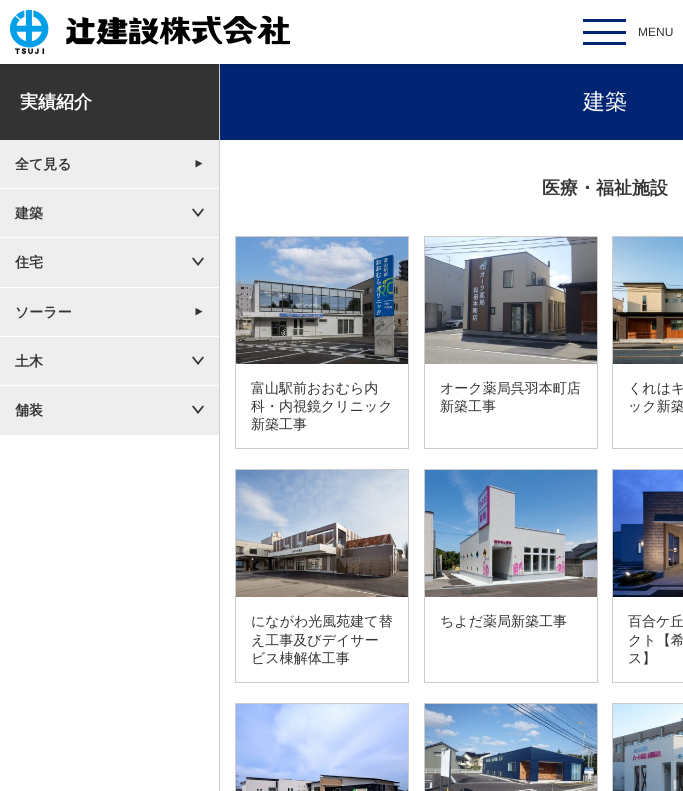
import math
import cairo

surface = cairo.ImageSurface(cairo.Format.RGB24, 683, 791)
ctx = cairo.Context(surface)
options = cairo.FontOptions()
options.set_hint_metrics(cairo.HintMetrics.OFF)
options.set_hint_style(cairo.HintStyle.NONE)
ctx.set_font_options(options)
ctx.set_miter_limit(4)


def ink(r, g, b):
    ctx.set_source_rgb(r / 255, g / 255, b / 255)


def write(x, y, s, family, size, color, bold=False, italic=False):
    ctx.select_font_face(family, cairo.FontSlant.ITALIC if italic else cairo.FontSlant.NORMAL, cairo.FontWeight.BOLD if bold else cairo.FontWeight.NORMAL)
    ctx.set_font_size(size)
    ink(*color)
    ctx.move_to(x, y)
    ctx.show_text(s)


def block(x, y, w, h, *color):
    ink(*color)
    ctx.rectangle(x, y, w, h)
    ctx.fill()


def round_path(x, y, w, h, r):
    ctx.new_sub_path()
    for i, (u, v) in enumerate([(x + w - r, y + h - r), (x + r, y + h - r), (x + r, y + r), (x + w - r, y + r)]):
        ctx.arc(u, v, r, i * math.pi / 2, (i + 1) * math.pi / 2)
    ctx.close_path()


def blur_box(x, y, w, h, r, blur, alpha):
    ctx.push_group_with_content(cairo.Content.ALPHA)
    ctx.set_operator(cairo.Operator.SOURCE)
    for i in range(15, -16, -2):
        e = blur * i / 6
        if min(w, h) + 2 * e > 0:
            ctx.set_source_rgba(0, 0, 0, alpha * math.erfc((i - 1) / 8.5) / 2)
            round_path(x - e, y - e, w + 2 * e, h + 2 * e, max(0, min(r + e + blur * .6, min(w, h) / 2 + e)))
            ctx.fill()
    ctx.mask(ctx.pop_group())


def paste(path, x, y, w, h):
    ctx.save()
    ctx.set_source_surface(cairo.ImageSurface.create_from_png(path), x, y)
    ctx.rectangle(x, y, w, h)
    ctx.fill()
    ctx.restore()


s1 = dict(family="Liberation Sans", size=12, color=(51, 51, 51))
s2 = dict(family="WenQuanYi Zen Hei", size=18, color=(255, 255, 255), bold=True)
s3 = dict(family="WenQuanYi Zen Hei", size=14, color=(51, 51, 51), bold=True)
s4 = dict(family="WenQuanYi Zen Hei Medium", size=22, color=(255, 255, 255))
s5 = dict(family="WenQuanYi Zen Hei", size=18, color=(51, 51, 51), bold=True)
s6 = dict(family="WenQuanYi Zen Hei Medium", size=14, color=(51, 51, 51))

ink(255, 255, 255)
ctx.paint()
block(0, 64, 219, 76, 51, 51, 51)
block(219, 64, 1, 727, 204, 204, 204)
block(220, 64, 463, 76, 1, 37, 114)
ctx.save()
ctx.rectangle(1, 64, 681, 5)
ctx.clip()
ink(0, 0, 0)
blur_box(3, 9, 677, 58, 0, 2, 0.1)
ctx.restore()
paste("pic1.png", 10, 10, 280, 44)
block(583, 19, 43, 3, 1, 37, 114)
block(583, 31, 43, 3, 1, 37, 114)
block(583, 42, 43, 3, 1, 37, 114)
write(638, 36, "MENU", **s1)
write(20, 108, "実績紹介", **s2)
block(0, 140, 219, 48, 238, 238, 238)
write(15, 169, "全て見る", **s3)
ctx.new_path()
ctx.move_to(202.5, 163.5)
ctx.line_to(195.5, 167.5)
ctx.line_to(195.5, 160)
ctx.close_path()
ctx.fill()
block(0, 386, 219, 49, 238, 238, 238)
block(0, 189, 219, 48, 238, 238, 238)
write(15, 218, "建築", **s3)
paste("pic2.png", 192, 208, 12, 9)
block(0, 238, 219, 49, 238, 238, 238)
write(15, 267, "住宅", **s3)
paste("pic2.png", 192, 257, 12, 9)
block(0, 288, 219, 48, 238, 238, 238)
write(15, 317, "ソーラー", **s3)
ctx.new_path()
ctx.move_to(202.5, 311.5)
ctx.line_to(195.5, 315.5)
ctx.line_to(195.5, 308)
ctx.close_path()
ctx.fill()
block(0, 337, 219, 48, 238, 238, 238)
write(15, 366, "土木", **s3)
paste("pic2.png", 192, 356, 12, 9)
write(15, 415, "舗装", **s3)
paste("pic2.png", 192, 405, 12, 9)
write(583, 109, "建築", **s4)
write(542, 194, "医療・福祉施設", **s5)
ctx.rectangle(235.5, 236.5, 173, 212)
ink(204, 204, 204)
ctx.set_line_width(1)
ctx.stroke()
paste("pic3.png", 236, 237, 172, 127)
write(251, 393, "富山駅前おおむら内", **s6)
write(251, 411, "科・内視鏡クリニック", **s6)
write(251, 429, "新築工事", **s6)
ctx.rectangle(424.5, 236.5, 173, 212)
ink(204, 204, 204)
ctx.stroke()
paste("pic4.png", 425, 237, 172, 127)
write(440, 393, "オーク薬局呉羽本町店", **s6)
write(440, 411, "新築工事", **s6)
ctx.rectangle(612.5, 236.5, 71, 212)
ink(204, 204, 204)
ctx.stroke()
paste("pic5.png", 613, 237, 70, 127)
write(628, 393, "くれはキ", **s6)
write(628, 411, "ック新築", **s6)
ctx.rectangle(235.5, 469.5, 173, 213)
ink(204, 204, 204)
ctx.stroke()
paste("pic6.png", 236, 470, 172, 127)
write(251, 626, "にながわ光風苑建て替", **s6)
write(251, 645, "え工事及びデイサー", **s6)
write(251, 663, "ビス棟解体工事", **s6)
ctx.rectangle(424.5, 469.5, 173, 213)
ink(204, 204, 204)
ctx.stroke()
paste("pic7.png", 425, 470, 172, 127)
write(440, 626, "ちよだ薬局新築工事", **s6)
ctx.rectangle(612.5, 469.5, 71, 213)
ink(204, 204, 204)
ctx.stroke()
paste("pic8.png", 613, 470, 70, 127)
write(628, 626, "百合ケ丘", **s6)
write(628, 645, "クト【希", **s6)
write(628, 663, "ス】", **s6)
ctx.rectangle(235.5, 703.5, 173, 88)
ink(204, 204, 204)
ctx.stroke()
paste("pic9.png", 236, 704, 172, 87)
ctx.rectangle(424.5, 703.5, 173, 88)
ctx.stroke()
paste("pic10.png", 425, 704, 172, 87)
ctx.rectangle(612.5, 703.5, 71, 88)
ctx.stroke()
paste("pic11.png", 613, 704, 70, 87)
surface.write_to_png("screenshot.png")
